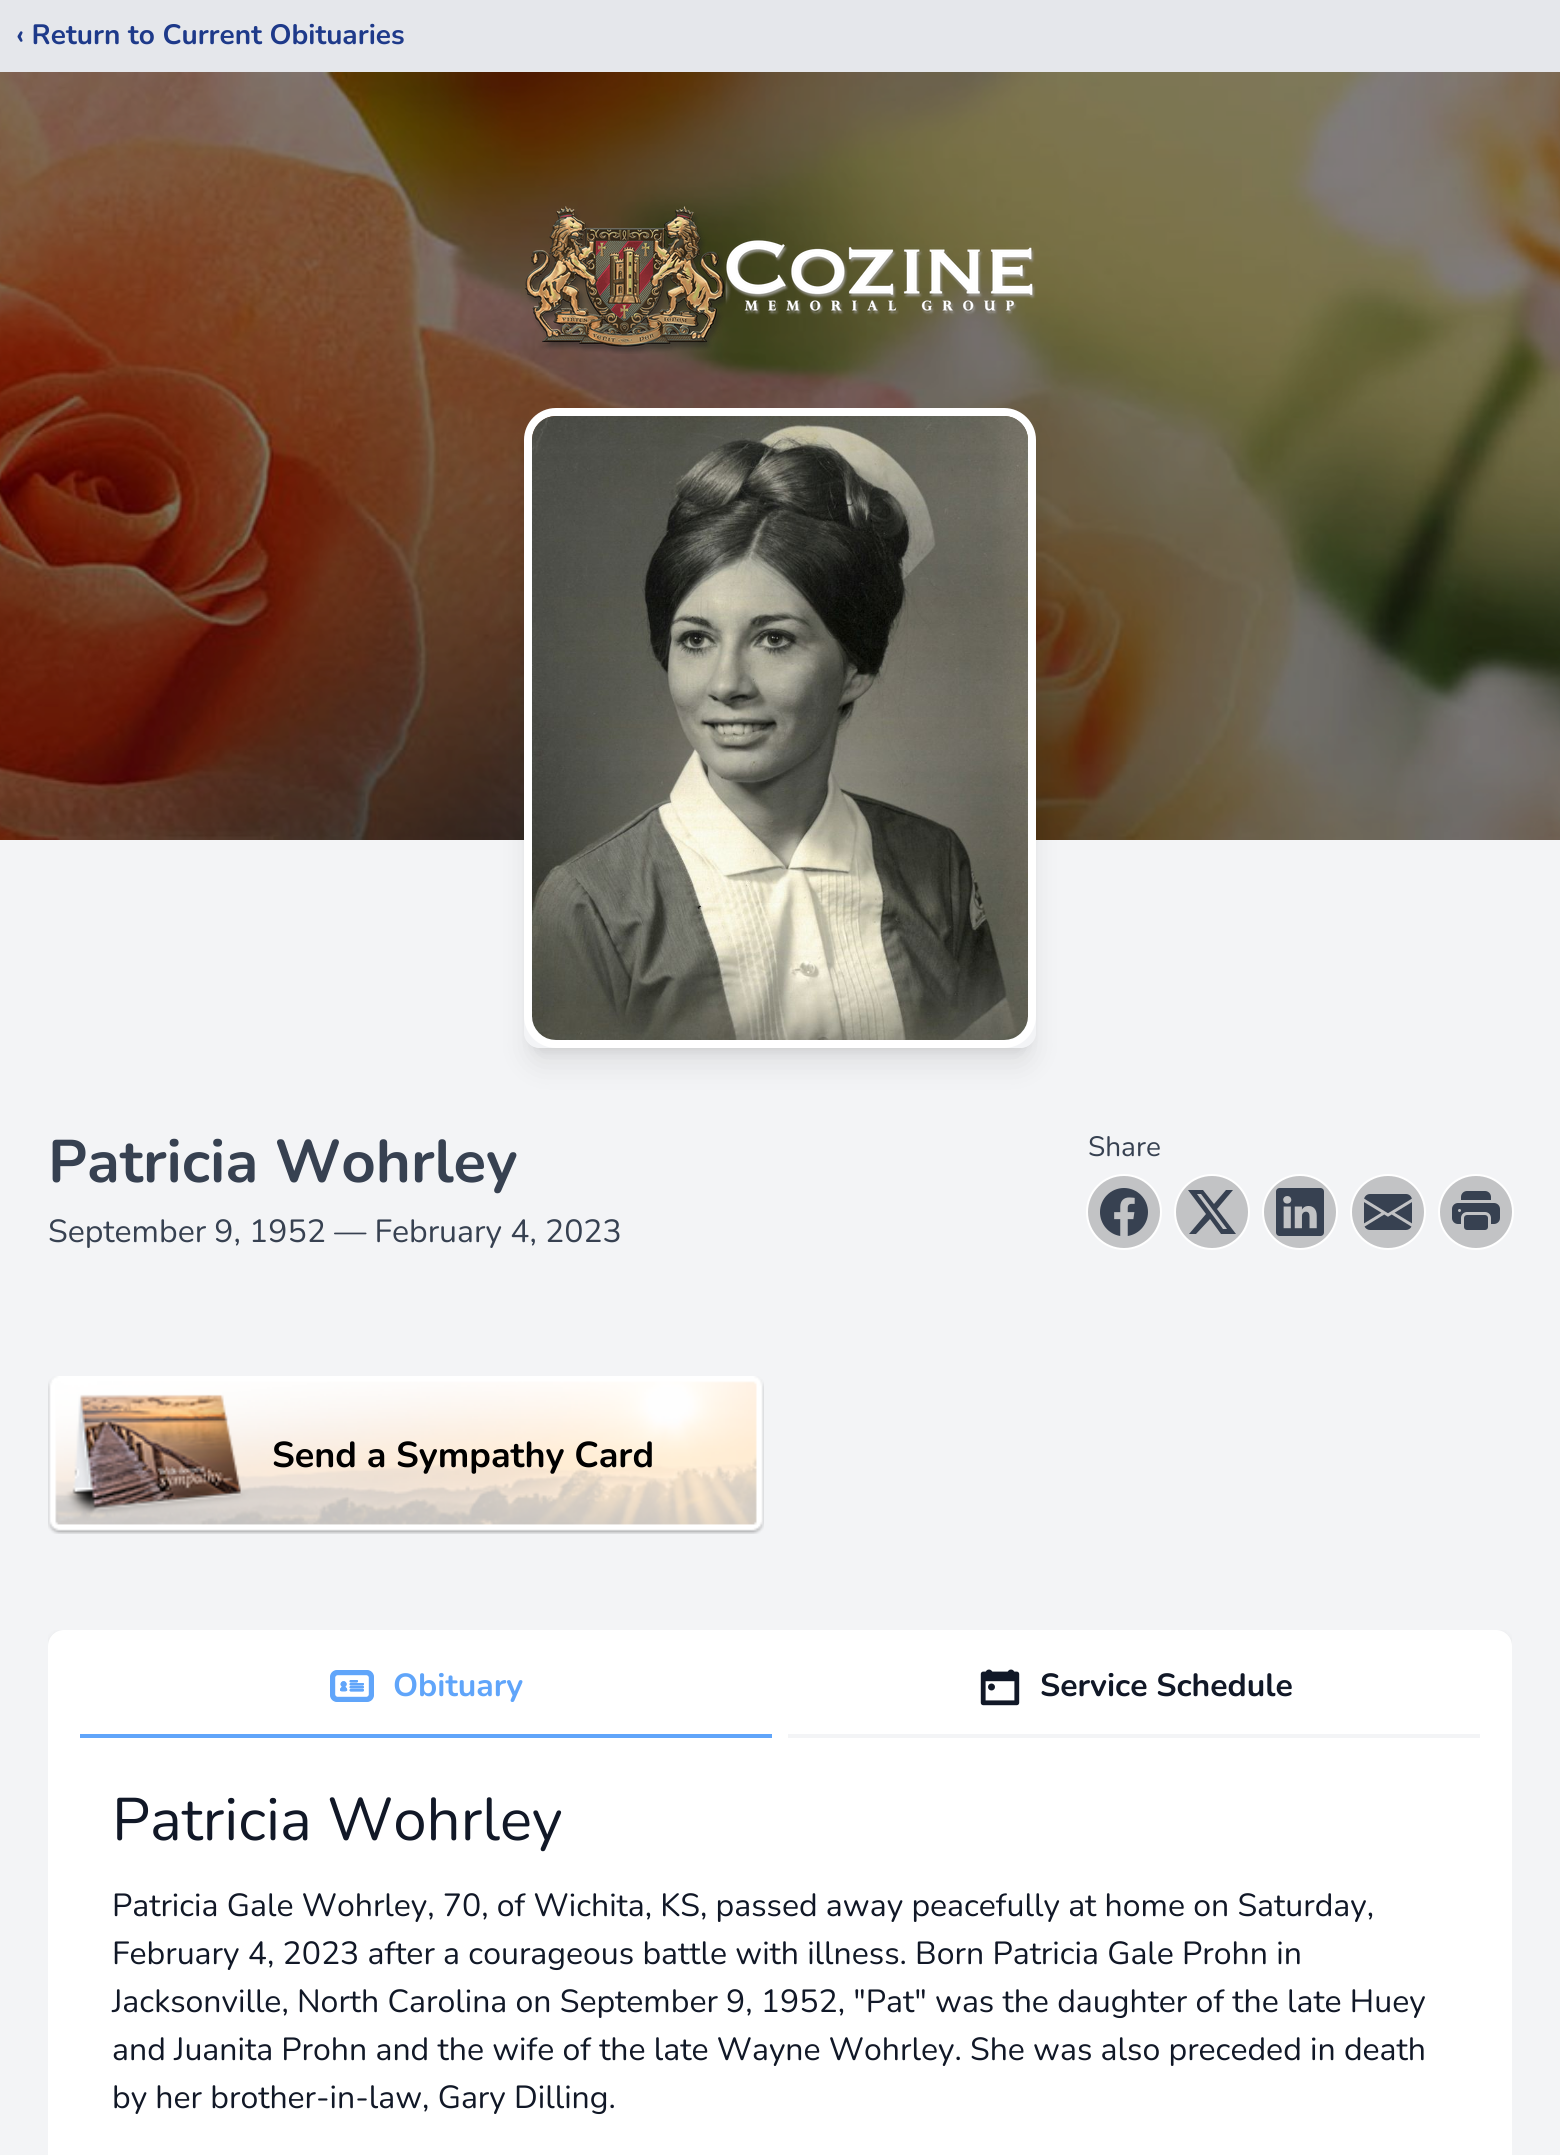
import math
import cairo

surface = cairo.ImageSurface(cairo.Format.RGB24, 1560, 2155)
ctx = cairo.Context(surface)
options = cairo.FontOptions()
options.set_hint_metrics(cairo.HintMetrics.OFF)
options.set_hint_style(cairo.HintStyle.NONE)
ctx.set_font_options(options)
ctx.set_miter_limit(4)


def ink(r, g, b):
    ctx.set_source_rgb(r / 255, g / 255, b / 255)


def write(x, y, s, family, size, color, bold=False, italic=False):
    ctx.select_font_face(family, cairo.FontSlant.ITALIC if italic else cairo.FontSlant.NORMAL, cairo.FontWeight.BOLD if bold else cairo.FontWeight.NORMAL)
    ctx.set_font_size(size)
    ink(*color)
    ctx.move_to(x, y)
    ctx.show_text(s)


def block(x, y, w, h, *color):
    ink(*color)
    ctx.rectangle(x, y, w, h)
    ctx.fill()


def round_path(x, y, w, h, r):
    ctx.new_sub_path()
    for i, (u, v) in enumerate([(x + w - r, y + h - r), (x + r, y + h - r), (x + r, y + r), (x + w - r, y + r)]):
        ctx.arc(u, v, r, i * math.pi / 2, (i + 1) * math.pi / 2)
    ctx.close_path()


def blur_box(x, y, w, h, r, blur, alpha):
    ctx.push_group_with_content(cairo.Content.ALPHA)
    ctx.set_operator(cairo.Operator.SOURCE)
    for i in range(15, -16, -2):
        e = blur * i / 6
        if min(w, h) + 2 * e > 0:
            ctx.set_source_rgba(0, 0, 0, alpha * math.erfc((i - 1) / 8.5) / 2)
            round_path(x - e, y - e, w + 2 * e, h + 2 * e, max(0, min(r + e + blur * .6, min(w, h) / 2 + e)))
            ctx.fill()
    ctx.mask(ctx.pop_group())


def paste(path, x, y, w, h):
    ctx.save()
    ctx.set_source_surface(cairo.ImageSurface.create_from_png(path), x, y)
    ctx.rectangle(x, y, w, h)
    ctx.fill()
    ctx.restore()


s1 = dict(family="Nunito", size=28, color=(30, 58, 138), bold=True)
s2 = dict(family="Nunito", size=60, color=(55, 65, 81), bold=True)
s3 = dict(family="Nunito", size=32, color=(55, 65, 81))
s4 = dict(family="Nunito", size=28, color=(55, 65, 81))
s5 = dict(family="Nunito", size=36, color=(0, 0, 0), bold=True)
s6 = dict(family="Nunito", size=32, color=(96, 165, 250), bold=True)
s7 = dict(family="Nunito", size=32, color=(17, 24, 39), bold=True)
s8 = dict(family="Nunito", size=60, color=(17, 24, 39))
s9 = dict(family="Nunito", size=32, color=(17, 24, 39))

ink(243, 244, 246)
ctx.paint()
block(0, 0, 1560, 72, 229, 231, 235)
write(16, 44, "‹ Return to Current Obituaries", **s1)
paste("pic1.png", 0, 72, 1560, 768)
paste("pic2.png", 525, 206, 511, 148)
ctx.save()
ctx.set_fill_rule(cairo.FillRule.EVEN_ODD)
ctx.new_path()
ctx.move_to(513, 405)
ctx.line_to(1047, 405)
ctx.line_to(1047, 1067)
ctx.line_to(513, 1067)
ctx.close_path()
ctx.move_to(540, 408)
ctx.line_to(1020, 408)
ctx.curve_to(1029, 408, 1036, 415, 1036, 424)
ctx.line_to(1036, 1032)
ctx.curve_to(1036, 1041, 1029, 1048, 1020, 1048)
ctx.line_to(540, 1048)
ctx.curve_to(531, 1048, 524, 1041, 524, 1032)
ctx.line_to(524, 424)
ctx.curve_to(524, 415, 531, 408, 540, 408)
ctx.close_path()
ctx.clip()
ink(0, 0, 0)
blur_box(532, 424, 496, 624, 8, 6, 0.1)
ctx.restore()
ctx.save()
ctx.set_fill_rule(cairo.FillRule.EVEN_ODD)
ctx.new_path()
ctx.move_to(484, 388)
ctx.line_to(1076, 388)
ctx.line_to(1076, 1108)
ctx.line_to(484, 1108)
ctx.close_path()
ctx.move_to(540, 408)
ctx.line_to(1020, 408)
ctx.curve_to(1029, 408, 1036, 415, 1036, 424)
ctx.line_to(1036, 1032)
ctx.curve_to(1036, 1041, 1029, 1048, 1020, 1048)
ctx.line_to(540, 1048)
ctx.curve_to(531, 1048, 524, 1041, 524, 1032)
ctx.line_to(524, 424)
ctx.curve_to(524, 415, 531, 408, 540, 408)
ctx.close_path()
ctx.clip()
ink(0, 0, 0)
blur_box(530, 434, 500, 628, 10, 15, 0.1)
ctx.restore()
round_path(528, 412, 504, 632, 28)
ink(255, 255, 255)
ctx.set_line_width(8)
ctx.stroke()
paste("pic3.png", 532, 416, 496, 624)
write(48, 1182, "Patricia Wohrley", **s2)
write(48, 1242, "September 9, 1952 — February 4, 2023", **s3)
write(1088, 1156, "Share", **s4)
ctx.new_path()
ctx.arc(1124, 1212, 37, 0, 2 * math.pi)
ink(255, 255, 255)
ctx.set_line_width(2)
ctx.stroke()
ctx.set_source_rgba(0, 0, 0, 0.2)
ctx.arc(1124, 1212, 36, 0, 2 * math.pi)
ctx.fill()
paste("pic4.png", 1100, 1188, 48, 48)
ctx.arc(1212, 1212, 37, 0, 2 * math.pi)
ink(255, 255, 255)
ctx.stroke()
ctx.set_source_rgba(0, 0, 0, 0.2)
ctx.arc(1212, 1212, 36, 0, 2 * math.pi)
ctx.fill()
ink(55, 65, 81)
ctx.new_path()
ctx.move_to(1226, 1190)
ctx.line_to(1233, 1190)
ctx.line_to(1217, 1209)
ctx.line_to(1236, 1234)
ctx.line_to(1221, 1234)
ctx.line_to(1210, 1219)
ctx.line_to(1196, 1234)
ctx.line_to(1189, 1234)
ctx.line_to(1206, 1214)
ctx.line_to(1188, 1190)
ctx.line_to(1203, 1190)
ctx.line_to(1214, 1204)
ctx.close_path()
ctx.move_to(1223, 1229)
ctx.line_to(1227, 1229)
ctx.line_to(1201, 1194)
ctx.line_to(1197, 1194)
ctx.close_path()
ctx.fill()
ctx.arc(1300, 1212, 37, 0, 2 * math.pi)
ink(255, 255, 255)
ctx.stroke()
ctx.set_source_rgba(0, 0, 0, 0.2)
ctx.arc(1300, 1212, 36, 0, 2 * math.pi)
ctx.fill()
paste("pic5.png", 1276, 1188, 48, 48)
ctx.arc(1388, 1212, 37, 0, 2 * math.pi)
ink(255, 255, 255)
ctx.stroke()
ctx.set_source_rgba(0, 0, 0, 0.2)
ctx.arc(1388, 1212, 36, 0, 2 * math.pi)
ctx.fill()
paste("pic6.png", 1364, 1194, 48, 36)
ctx.arc(1476, 1212, 37, 0, 2 * math.pi)
ink(255, 255, 255)
ctx.stroke()
ctx.set_source_rgba(0, 0, 0, 0.2)
ctx.arc(1476, 1212, 36, 0, 2 * math.pi)
ctx.fill()
paste("pic7.png", 1452, 1191, 48, 39)
paste("pic8.png", 48, 1376, 716, 158)
write(272, 1467, "Send a Sympathy Card", **s5)
ctx.save()
ctx.rectangle(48, 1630, 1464, 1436)
ctx.clip()
ink(0, 0, 0)
blur_box(48, 1632, 1464, 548, 16, 3, 0.1)
ctx.restore()
ink(255, 255, 255)
round_path(48, 1630, 1464, 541, 16)
ctx.fill()
block(80, 1734, 692, 4, 96, 165, 250)
paste("pic9.png", 330, 1670, 44, 32)
write(393, 1696, "Obituary", **s6)
block(788, 1734, 692, 4, 243, 244, 246)
paste("pic10.png", 980, 1669, 40, 37)
write(1040, 1696, "Service Schedule", **s7)
write(112, 1840, "Patricia Wohrley", **s8)
write(112, 1916, "Patricia Gale Wohrley, 70, of Wichita, KS, passed away peacefully at home on Saturday,", **s9)
write(112, 1964, "February 4, 2023 after a courageous battle with illness. Born Patricia Gale Prohn in", **s9)
write(112, 2012, "Jacksonville, North Carolina on September 9, 1952, \"Pat\" was the daughter of the late Huey", **s9)
write(112, 2060, "and Juanita Prohn and the wife of the late Wayne Wohrley. She was also preceded in death", **s9)
write(112, 2108, "by her brother-in-law, Gary Dilling.", **s9)
surface.write_to_png("screenshot.png")
